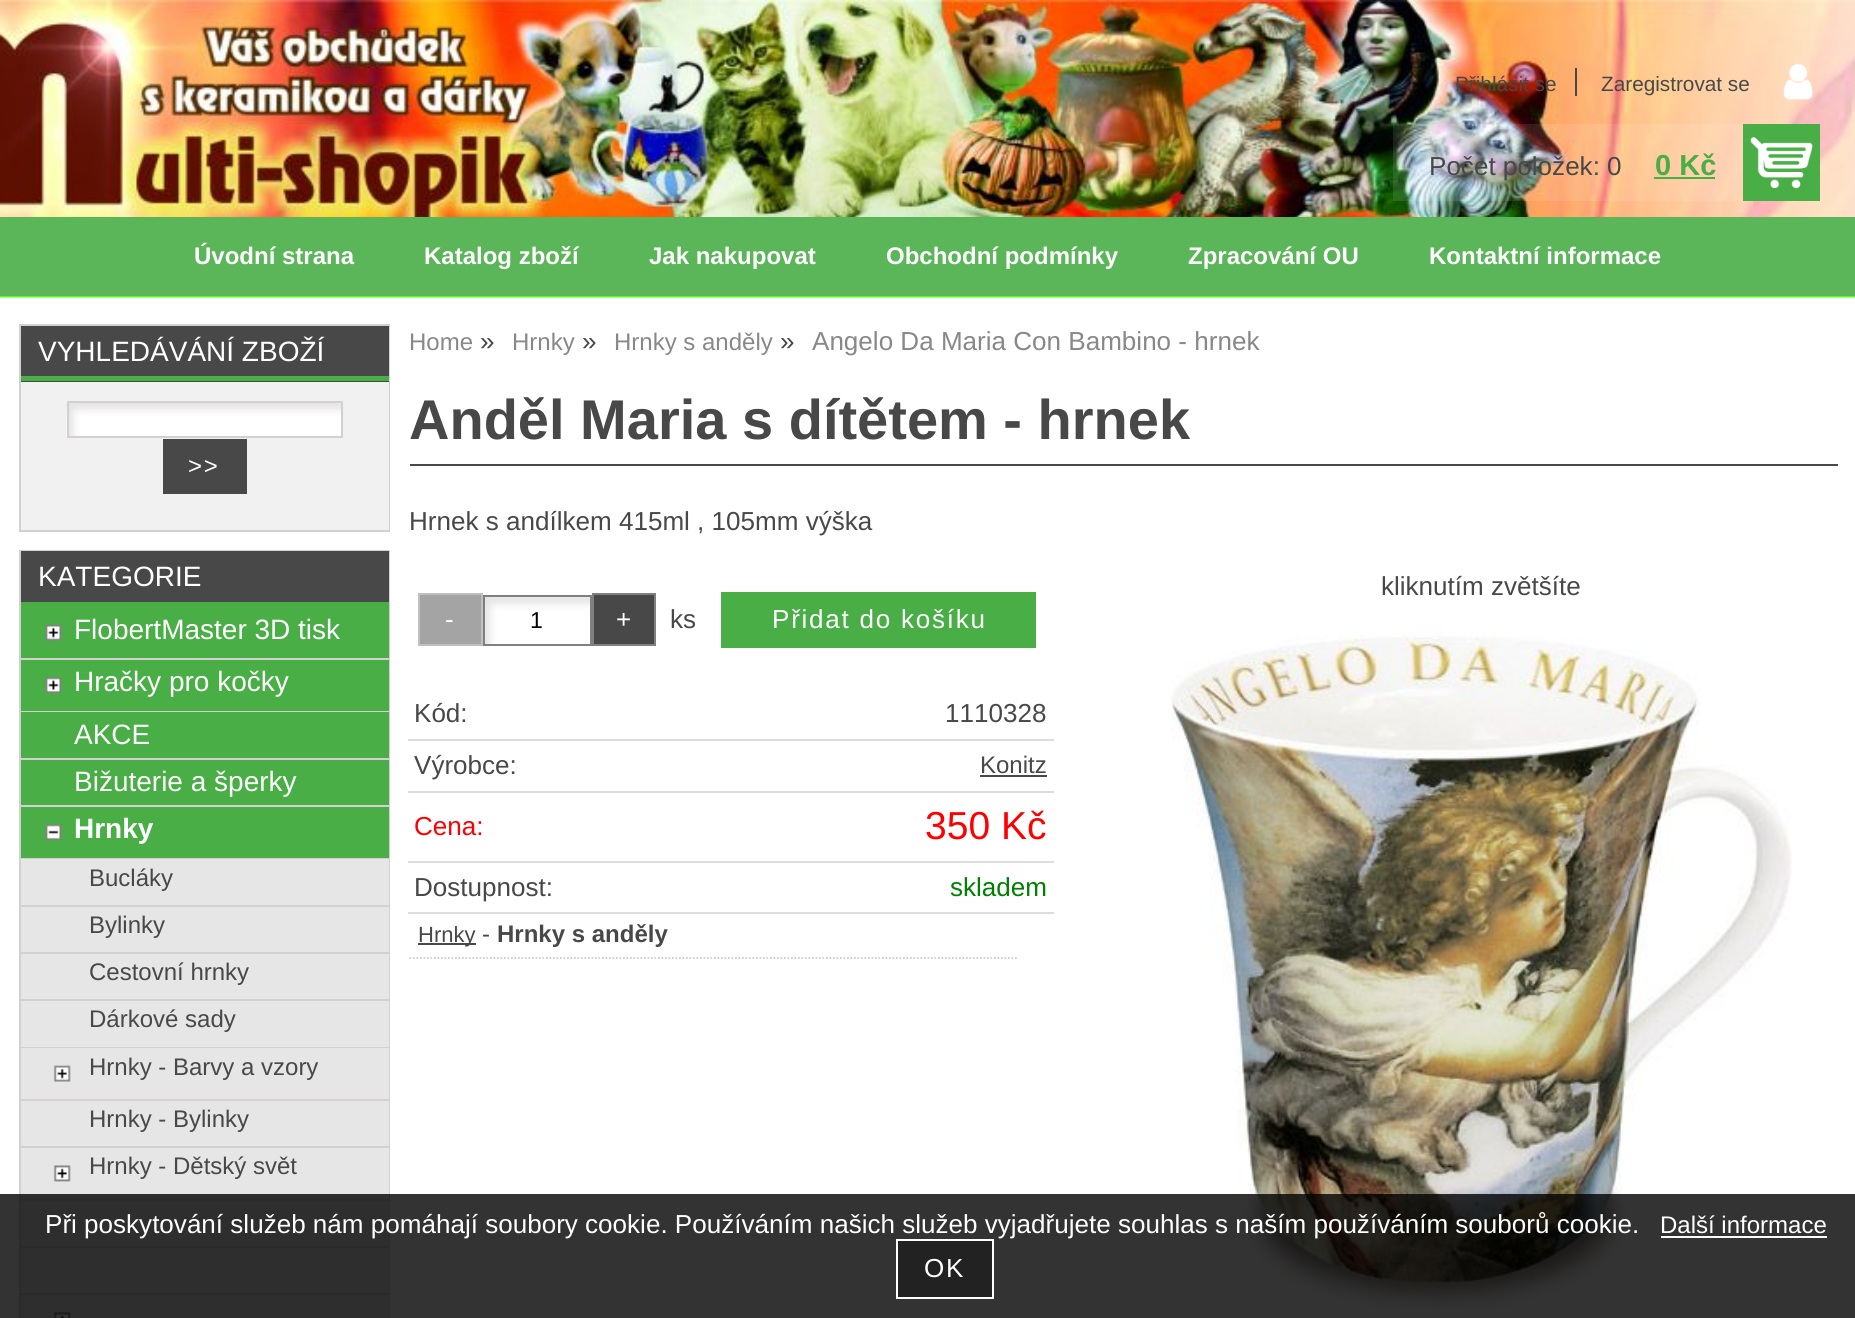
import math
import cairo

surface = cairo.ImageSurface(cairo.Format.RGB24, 1855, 1318)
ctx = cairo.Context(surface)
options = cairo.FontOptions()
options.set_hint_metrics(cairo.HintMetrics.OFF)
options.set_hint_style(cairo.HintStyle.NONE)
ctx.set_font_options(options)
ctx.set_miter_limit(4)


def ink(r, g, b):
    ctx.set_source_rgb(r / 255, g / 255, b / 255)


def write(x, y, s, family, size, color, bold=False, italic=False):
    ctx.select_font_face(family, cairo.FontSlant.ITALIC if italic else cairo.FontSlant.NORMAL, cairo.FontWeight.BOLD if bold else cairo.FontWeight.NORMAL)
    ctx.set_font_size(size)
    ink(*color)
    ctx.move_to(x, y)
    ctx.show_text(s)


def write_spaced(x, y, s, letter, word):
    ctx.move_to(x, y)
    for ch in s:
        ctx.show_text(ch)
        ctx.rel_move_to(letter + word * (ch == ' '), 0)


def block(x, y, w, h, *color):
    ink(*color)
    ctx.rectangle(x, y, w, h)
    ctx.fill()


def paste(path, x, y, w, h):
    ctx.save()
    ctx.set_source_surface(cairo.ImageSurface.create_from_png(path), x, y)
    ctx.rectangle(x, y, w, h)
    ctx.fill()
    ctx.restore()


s1 = dict(family="Liberation Sans", size=20.75, color=(72, 72, 72))
s2 = dict(family="Liberation Sans", size=26.05, color=(72, 72, 72))
s3 = dict(family="Liberation Sans", size=29, color=(72, 174, 69), bold=True)
s4 = dict(family="Liberation Sans", size=24, color=(255, 255, 255), bold=True)
s5 = dict(family="Liberation Sans", size=28, color=(255, 255, 255))
s6 = dict(family="Liberation Sans", size=28, color=(255, 255, 255), bold=True)
s7 = dict(family="Liberation Sans", size=24, color=(72, 72, 72))
s8 = dict(family="Liberation Sans", size=24, color=(136, 136, 136))
s9 = dict(family="Liberation Sans", size=26.05, color=(136, 136, 136))
s10 = dict(family="Liberation Sans", size=56, color=(72, 72, 72), bold=True)
s11 = dict(family="Liberation Sans", size=26.05, color=(255, 0, 0))
s12 = dict(family="Liberation Sans", size=39, color=(255, 0, 0))
s13 = dict(family="Liberation Sans", size=26.05, color=(0, 128, 0))
s14 = dict(family="Liberation Sans", size=22, color=(72, 72, 72))
s15 = dict(family="Liberation Sans", size=24, color=(72, 72, 72), bold=True)
s16 = dict(family="Liberation Sans", size=26.05, color=(255, 255, 255))
s17 = dict(family="Liberation Sans", size=24, color=(255, 255, 255))

ink(255, 255, 255)
ctx.paint()
paste("pic1.png", 0, 0, 1855, 298)
block(1575, 68, 2, 28, 72, 72, 72)
write(1455, 91, "Přihlásit se", **s1)
write(1601, 91, "Zaregistrovat se", **s1)
paste("pic2.png", 1783, 64, 30, 36)
ctx.set_source_rgba(1, 1, 1, 0.1)
ctx.rectangle(1393, 124, 350, 77)
ctx.fill()
write(1429, 175, "Počet položek: 0", **s2)
write(1655, 175, "0 Kč", **s3)
block(1654, 177, 61, 2, 72, 174, 69)
block(1743, 124, 77, 77, 72, 174, 69)
paste("pic3.png", 1750, 137, 63, 52)
block(0, 217, 1855, 79, 90, 182, 88)
write(194, 264, "Úvodní strana", **s4)
write(424, 264, "Katalog zboží", **s4)
write(649, 264, "Jak nakupovat", **s4)
write(886, 264, "Obchodní podmínky", **s4)
write(1188, 264, "Zpracování OU", **s4)
write(1429, 264, "Kontaktní informace", **s4)
ctx.rectangle(20, 325, 369, 206)
ink(210, 208, 208)
ctx.stroke()
block(21, 326, 368, 56, 72, 72, 72)
block(21, 376, 368, 5, 72, 174, 69)
write(38, 361, "VYHLEDÁVÁNÍ ZBOŽÍ", **s5)
block(21, 382, 368, 148, 241, 241, 241)
paste("pic4.png", 66, 401, 275, 37)
ctx.rectangle(68, 402, 274, 35)
ink(210, 208, 208)
ctx.stroke()
block(163, 439, 84, 55, 72, 72, 72)
ctx.set_font_size(24)
ink(255, 255, 255)
write_spaced(188, 474, ">>", 1.75, 0)
ctx.rectangle(20, 551, 369, 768)
ink(210, 208, 208)
ctx.stroke()
block(21, 551, 368, 51, 72, 72, 72)
block(21, 602, 368, 56, 72, 174, 69)
write(38, 586, "KATEGORIE", **s5)
block(21, 658, 368, 2, 210, 208, 208)
paste("pic5.png", 45, 624, 17, 17)
write(74, 639, "FlobertMaster 3D tisk", **s5)
block(21, 660, 368, 51, 72, 174, 69)
block(21, 711, 368, 1, 210, 208, 208)
paste("pic6.png", 45, 677, 17, 17)
write(74, 691, "Hračky pro kočky", **s5)
block(21, 712, 368, 46, 72, 174, 69)
block(21, 758, 368, 2, 210, 208, 208)
write(74, 744, "AKCE", **s5)
block(21, 760, 368, 45, 72, 174, 69)
block(21, 805, 368, 2, 210, 208, 208)
write(74, 791, "Bižuterie a šperky", **s5)
block(21, 807, 368, 51, 72, 174, 69)
block(21, 858, 368, 1, 210, 208, 208)
paste("pic7.png", 45, 824, 17, 17)
write(74, 838, "Hrnky", **s6)
block(21, 859, 368, 46, 230, 230, 230)
block(21, 905, 368, 2, 210, 208, 208)
write(89, 886, "Bucláky", **s7)
block(21, 907, 368, 45, 230, 230, 230)
block(21, 952, 368, 2, 210, 208, 208)
write(89, 933, "Bylinky", **s7)
block(21, 954, 368, 45, 230, 230, 230)
block(21, 999, 368, 2, 210, 208, 208)
write(89, 980, "Cestovní hrnky", **s7)
block(21, 1001, 368, 46, 230, 230, 230)
block(21, 1047, 368, 1, 210, 208, 208)
write(89, 1027, "Dárkové sady", **s7)
block(21, 1048, 368, 51, 230, 230, 230)
block(21, 1099, 368, 2, 210, 208, 208)
paste("pic8.png", 53, 1065, 18, 17)
write(89, 1075, "Hrnky - Barvy a vzory", **s7)
block(21, 1101, 368, 45, 230, 230, 230)
block(21, 1146, 368, 2, 210, 208, 208)
write(89, 1127, "Hrnky - Bylinky", **s7)
block(21, 1148, 368, 51, 230, 230, 230)
block(21, 1199, 368, 2, 210, 208, 208)
paste("pic9.png", 53, 1165, 18, 17)
write(89, 1174, "Hrnky - Dětský svět", **s7)
block(21, 1201, 368, 45, 230, 230, 230)
block(21, 1246, 368, 2, 210, 208, 208)
block(21, 1248, 368, 45, 230, 230, 230)
block(21, 1293, 368, 2, 210, 208, 208)
block(21, 1295, 368, 23, 230, 230, 230)
paste("pic10.png", 53, 1312, 18, 6)
write(409, 350, "Home", **s8)
write(480, 350, "»", **s2)
write(512, 350, "Hrnky", **s8)
write(582, 350, "»", **s2)
write(614, 350, "Hrnky s anděly", **s8)
write(780, 350, "»", **s2)
write(812, 350, "Angelo Da Maria Con Bambino - hrnek", **s9)
block(410, 464, 1428, 2, 72, 72, 72)
write(409, 439, "Anděl Maria s dítětem - hrnek", **s10)
write(409, 530, "Hrnek s andílkem 415ml , 105mm výška", **s2)
write(1381, 595, "kliknutím zvětšíte", **s2)
paste("pic11.png", 1171, 623, 621, 686)
ink(164, 164, 164)
ctx.rectangle(419, 594, 63, 51)
ctx.fill_preserve()
ink(192, 192, 192)
ctx.stroke()
ink(255, 255, 255)
write_spaced(445, 628, "-", 1.75, 0)
paste("pic12.png", 485, 597, 105, 47)
ctx.rectangle(484, 596, 107, 49)
ink(128, 128, 128)
ctx.stroke()
ctx.set_font_size(23)
ink(0, 0, 0)
write_spaced(530, 628, "1", 1.75, 0)
ink(72, 72, 72)
ctx.rectangle(593, 594, 62, 51)
ctx.fill_preserve()
ink(128, 128, 128)
ctx.stroke()
ctx.set_font_size(26.05)
ink(255, 255, 255)
write_spaced(616, 628, "+", 1.75, 0)
write(670, 628, "ks", **s2)
block(721, 592, 315, 56, 72, 174, 69)
ink(255, 255, 255)
write_spaced(772, 628, "Přidat do košíku", 1.75, 0)
write(414, 722, "Kód:", **s2)
block(408, 739, 646, 2, 221, 221, 221)
write(945, 722, "1110328", **s2)
write(414, 774, "Výrobce:", **s2)
block(408, 791, 646, 2, 221, 221, 221)
write(980, 773, "Konitz", **s7)
block(980, 775, 67, 2, 72, 72, 72)
write(414, 835, "Cena:", **s11)
block(408, 861, 646, 2, 221, 221, 221)
write(925, 839, "350 Kč", **s12)
write(414, 896, "Dostupnost:", **s2)
block(408, 912, 646, 2, 221, 221, 221)
write(950, 896, "skladem", **s13)
ctx.new_path()
ctx.move_to(409.5, 958)
ctx.line_to(1017, 958)
ink(204, 204, 204)
ctx.set_line_width(1.8)
ctx.set_dash([1.75, 1.75])
ctx.stroke()
block(418, 943, 58, 2, 72, 72, 72)
write(418, 942, "Hrnky", **s14)
write(482, 942, "-", **s7)
write(497, 942, "Hrnky s anděly", **s15)
ctx.set_source_rgba(0, 0, 0, 0.8)
ctx.rectangle(0, 1194, 1855, 124)
ctx.fill()
write(45, 1233, "Při poskytování služeb nám pomáhají soubory cookie. Používáním našich služeb vyjadřujete souhlas s naším používáním souborů cookie.", **s16)
write(1660, 1233, "Další informace", **s17)
block(1661, 1236, 166, 2, 255, 255, 255)
ink(34, 34, 34)
ctx.rectangle(897, 1240, 96, 58)
ctx.fill_preserve()
ink(255, 255, 255)
ctx.set_line_width(2)
ctx.set_dash([])
ctx.stroke()
ctx.set_font_size(26.05)
write_spaced(924, 1277, "OK", 1.75, 0)
surface.write_to_png("screenshot.png")
